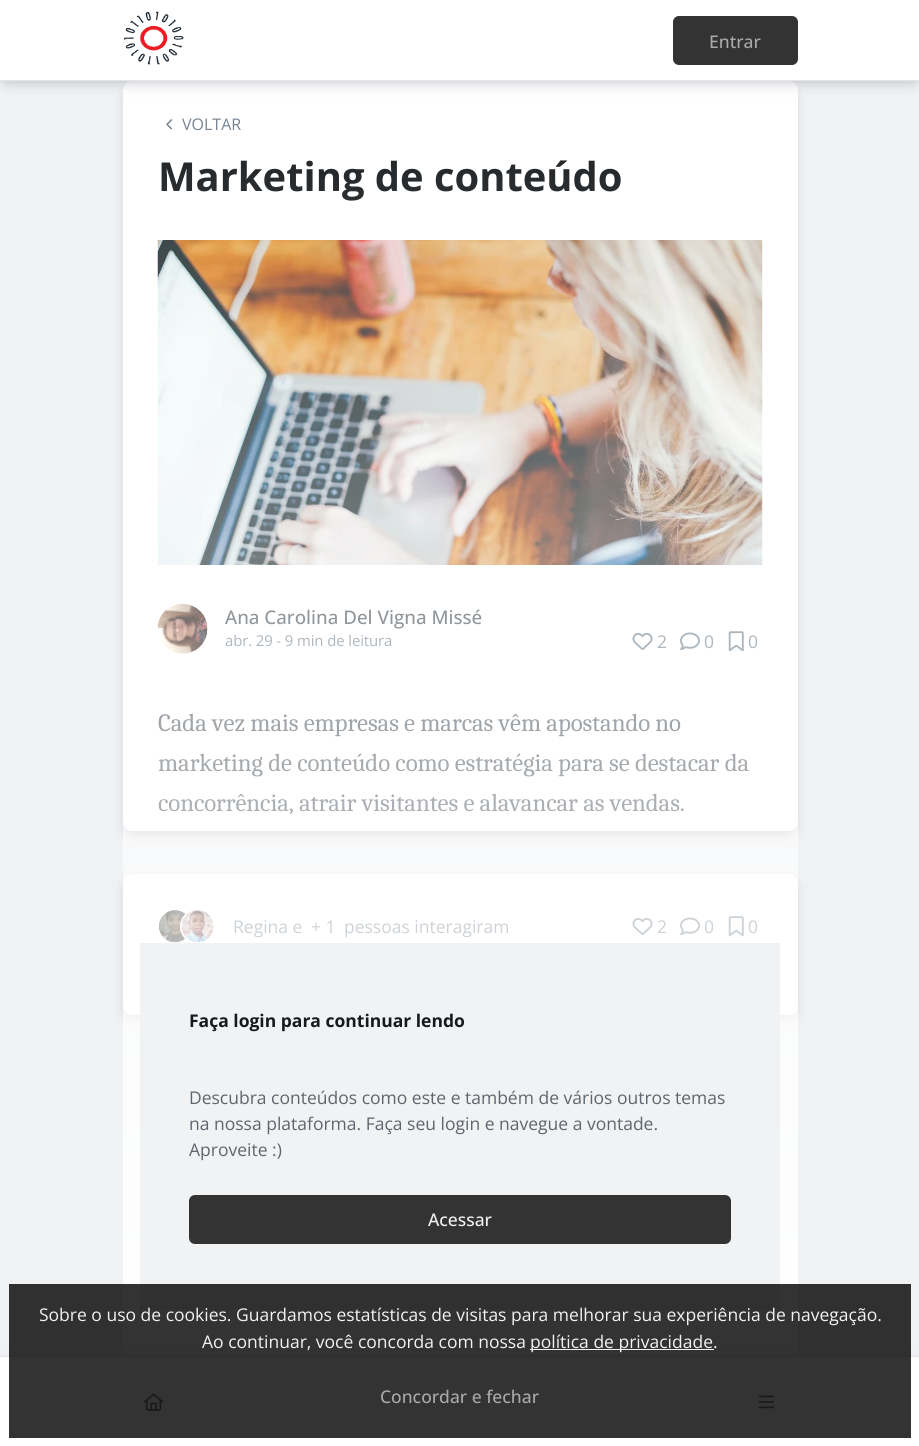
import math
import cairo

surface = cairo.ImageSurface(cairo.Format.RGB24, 919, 1446)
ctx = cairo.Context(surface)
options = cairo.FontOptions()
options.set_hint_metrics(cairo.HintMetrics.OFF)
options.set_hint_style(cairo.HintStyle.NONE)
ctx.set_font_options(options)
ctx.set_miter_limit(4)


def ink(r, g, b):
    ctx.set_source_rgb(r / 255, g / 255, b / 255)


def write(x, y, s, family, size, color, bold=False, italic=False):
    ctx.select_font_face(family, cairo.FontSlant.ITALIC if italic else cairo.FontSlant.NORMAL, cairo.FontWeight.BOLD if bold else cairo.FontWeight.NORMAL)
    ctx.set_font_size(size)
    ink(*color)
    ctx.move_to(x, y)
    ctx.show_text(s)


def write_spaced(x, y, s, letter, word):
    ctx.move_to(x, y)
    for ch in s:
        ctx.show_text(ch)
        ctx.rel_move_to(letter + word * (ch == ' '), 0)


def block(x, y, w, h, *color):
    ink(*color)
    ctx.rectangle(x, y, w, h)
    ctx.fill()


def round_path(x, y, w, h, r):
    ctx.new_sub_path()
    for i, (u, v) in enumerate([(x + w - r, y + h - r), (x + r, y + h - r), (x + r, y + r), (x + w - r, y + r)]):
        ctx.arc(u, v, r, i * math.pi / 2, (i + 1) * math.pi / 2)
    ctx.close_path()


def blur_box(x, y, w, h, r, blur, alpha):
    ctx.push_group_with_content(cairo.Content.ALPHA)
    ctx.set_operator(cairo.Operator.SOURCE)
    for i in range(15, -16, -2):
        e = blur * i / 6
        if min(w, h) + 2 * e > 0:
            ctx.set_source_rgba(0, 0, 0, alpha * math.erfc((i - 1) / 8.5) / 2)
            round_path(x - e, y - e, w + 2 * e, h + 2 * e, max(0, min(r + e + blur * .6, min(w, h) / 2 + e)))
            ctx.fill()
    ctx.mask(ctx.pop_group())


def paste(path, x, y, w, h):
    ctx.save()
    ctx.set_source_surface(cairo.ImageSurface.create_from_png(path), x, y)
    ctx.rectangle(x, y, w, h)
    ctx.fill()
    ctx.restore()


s1 = dict(family="Open Sans Medium", size=17.5, color=(169, 169, 169))
s2 = dict(family="Open Sans", size=16, color=(114, 128, 141))
s3 = dict(family="Open Sans", size=39.9, color=(23, 26, 28), bold=True)
s4 = dict(family="Open Sans Medium", size=18.75, color=(68, 77, 85))
s5 = dict(family="Open Sans", size=17.5, color=(114, 128, 141))
s6 = dict(family="Open Sans", size=17.5, color=(23, 26, 28), bold=True)
s7 = dict(family="Open Sans", size=17.5, color=(94, 102, 109))
s8 = dict(family="Open Sans Medium", size=17.5, color=(241, 242, 244))
s9 = dict(family="Open Sans", size=17.5, color=(241, 242, 244))

ink(241, 242, 244)
ctx.paint()
ink(100, 100, 118)
blur_box(129, 93, 662, 737, 2.5, 7.5, 0.5)
ink(255, 255, 255)
round_path(123, 81, 675, 750, 9)
ctx.fill()
ink(100, 100, 118)
blur_box(6, 11, 908, 69, 0, 7.5, 0.5)
block(0, 0, 919, 80, 255, 255, 255)
block(0, 80, 919, 1, 227, 230, 232)
paste("pic1.png", 124, 11, 60, 54)
ink(51, 51, 51)
round_path(674.5, 17.5, 122, 46, 4.5)
ctx.fill_preserve()
ctx.set_line_width(3)
ctx.stroke()
write(709, 48, "Entrar", **s1)
paste("pic2.png", 166, 119, 7, 11)
write(182, 130, "VOLTAR", **s2)
write(158, 191, "Marketing de conteúdo", **s3)
paste("pic3.png", 157, 240, 606, 325)
paste("pic4.png", 157, 603, 51, 51)
write(225, 624, "Ana Carolina Del Vigna Missé", **s4)
ctx.select_font_face("Open Sans")
ctx.set_font_size(14.9)
ink(114, 128, 141)
write_spaced(225, 646, "abr. 29 - 9 min de leitura", -0.1, 0)
paste("pic5.png", 632, 632, 21, 18)
write(657, 648, "2", **s5)
paste("pic6.png", 680, 632, 20, 18)
write(704, 648, "0", **s5)
paste("pic7.png", 728, 631, 16, 21)
write(748, 648, "0", **s5)
ctx.select_font_face("Caladea")
ctx.set_font_size(24.85)
ink(68, 77, 85)
write_spaced(158, 731, "Cada vez mais empresas e marcas vêm apostando no", -0.12, 0)
write_spaced(158, 771, "marketing de conteúdo como estratégia para se destacar da", -0.12, 0)
write_spaced(158, 811, "concorrência, atrair visitantes e alavancar as vendas.", -0.12, 0)
ink(100, 100, 118)
blur_box(129, 885, 662, 129, 2.5, 7.5, 0.5)
ink(255, 255, 255)
round_path(123, 874, 675, 141, 9)
ctx.fill()
paste("pic8.png", 159, 910, 27, 33)
ctx.arc(197.5, 926.5, 17, 0, 2 * math.pi)
ctx.fill_preserve()
ctx.set_line_width(1)
ctx.stroke()
paste("pic9.png", 181, 910, 33, 33)
write(233, 933, "Regina e", **s5)
write(311, 933, "+ 1", **s5)
write(344, 933, "pessoas interagiram", **s5)
paste("pic5.png", 632, 917, 21, 18)
write(657, 933, "2", **s5)
paste("pic6.png", 680, 917, 20, 18)
write(704, 933, "0", **s5)
paste("pic7.png", 728, 916, 16, 21)
write(748, 933, "0", **s5)
gradient = cairo.LinearGradient(460, 81, 460, 1383)
gradient.add_color_stop_rgba(0, 1, 1, 1, 0)
gradient.add_color_stop_rgba(1, 1, 1, 1, 1)
ctx.set_source(gradient)
ctx.rectangle(123, 119, 675, 1237)
ctx.fill()
block(140, 943, 640, 367, 241, 242, 244)
write(189, 1027, "Faça login para continuar lendo", **s6)
write(189, 1104, "Descubra conteúdos como este e também de vários outros temas", **s7)
write(189, 1130, "na nossa plataforma. Faça seu login e navegue a vontade.", **s7)
write(189, 1156, "Aproveite :)", **s7)
ink(51, 51, 51)
round_path(190.5, 1196.5, 539, 46, 4.5)
ctx.fill_preserve()
ctx.set_line_width(3)
ctx.stroke()
write(428, 1226, "Acessar", **s8)
ink(227, 230, 232)
blur_box(6, 1358, 908, 77, 0, 7.5, 1)
block(0, 1357, 919, 89, 255, 255, 255)
block(0, 1356, 919, 1, 227, 230, 232)
paste("pic10.png", 143, 1393, 21, 18)
paste("pic11.png", 758, 1395, 16, 14)
ctx.set_source_rgba(0, 0, 0, 0.8)
ctx.rectangle(9, 1284, 902, 154)
ctx.fill()
write(39, 1321, "Sobre o uso de cookies. Guardamos estatísticas de visitas para melhorar sua experiência de navegação.", **s9)
write(202, 1348, "Ao continuar, você concorda com nossa", **s9)
block(530, 1349, 184, 1, 241, 242, 244)
write(530, 1348, "política de privacidade.", **s9)
write(380, 1403, "Concordar e fechar", **s1)
surface.write_to_png("screenshot.png")
